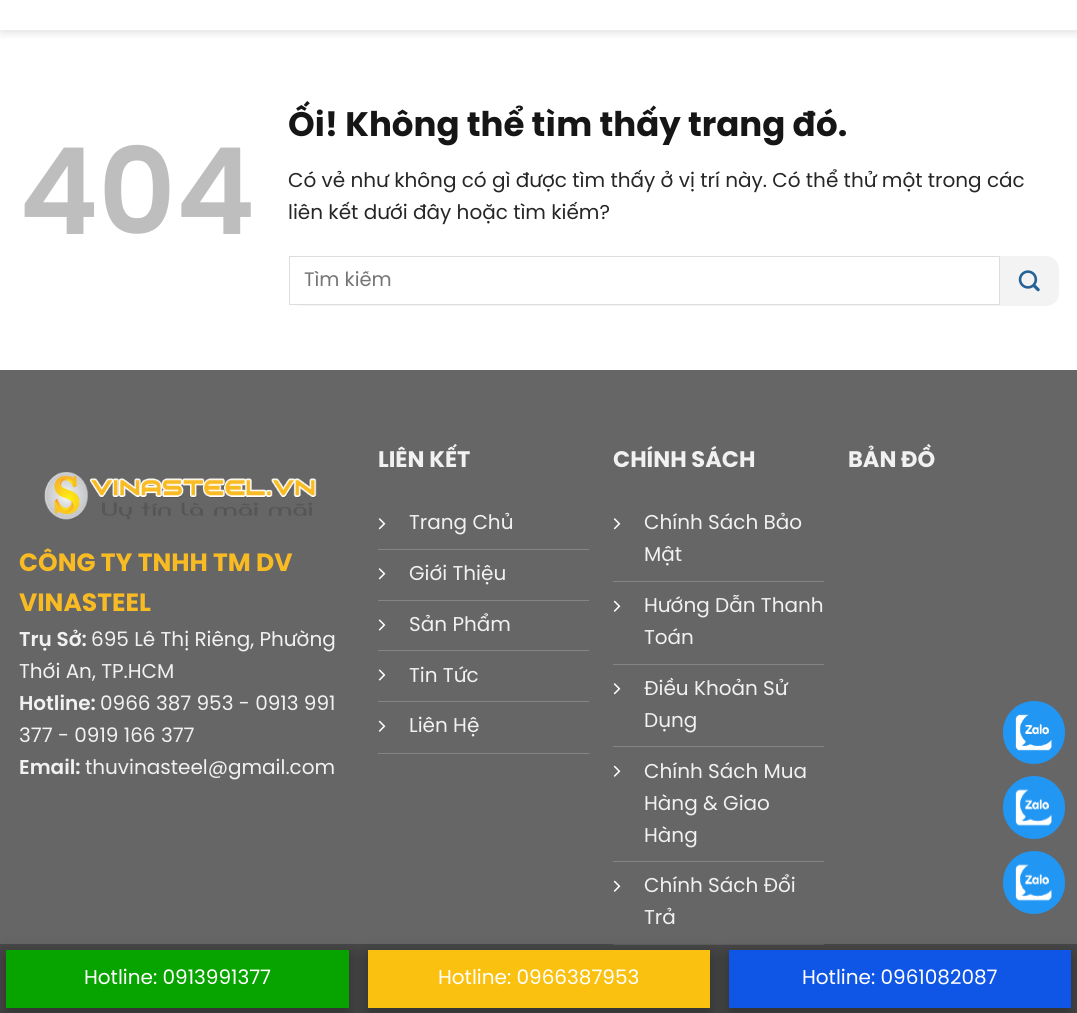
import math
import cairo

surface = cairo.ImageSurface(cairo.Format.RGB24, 1077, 1013)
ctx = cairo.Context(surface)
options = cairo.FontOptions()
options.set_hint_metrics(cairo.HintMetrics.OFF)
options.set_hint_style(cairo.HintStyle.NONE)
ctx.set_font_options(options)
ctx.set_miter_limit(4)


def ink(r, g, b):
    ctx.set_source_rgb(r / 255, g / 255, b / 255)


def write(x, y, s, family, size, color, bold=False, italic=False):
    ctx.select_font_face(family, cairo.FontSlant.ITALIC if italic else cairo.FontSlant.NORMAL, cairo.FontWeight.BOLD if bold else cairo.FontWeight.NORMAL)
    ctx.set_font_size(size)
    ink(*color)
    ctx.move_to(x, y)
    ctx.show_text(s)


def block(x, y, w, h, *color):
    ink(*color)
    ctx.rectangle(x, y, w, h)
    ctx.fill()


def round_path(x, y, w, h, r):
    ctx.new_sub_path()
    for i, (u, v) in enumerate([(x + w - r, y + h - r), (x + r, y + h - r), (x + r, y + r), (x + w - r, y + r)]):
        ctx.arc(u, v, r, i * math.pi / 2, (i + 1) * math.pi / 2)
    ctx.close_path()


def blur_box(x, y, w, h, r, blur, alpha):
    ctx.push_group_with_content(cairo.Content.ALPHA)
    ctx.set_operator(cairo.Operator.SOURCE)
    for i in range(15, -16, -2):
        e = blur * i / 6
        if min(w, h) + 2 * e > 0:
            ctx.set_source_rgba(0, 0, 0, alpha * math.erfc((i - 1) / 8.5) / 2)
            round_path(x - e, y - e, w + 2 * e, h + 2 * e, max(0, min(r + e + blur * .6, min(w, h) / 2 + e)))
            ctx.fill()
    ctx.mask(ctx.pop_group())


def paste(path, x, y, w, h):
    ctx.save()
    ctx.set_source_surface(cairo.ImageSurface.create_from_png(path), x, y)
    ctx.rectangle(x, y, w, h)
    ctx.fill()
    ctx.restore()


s1 = dict(family="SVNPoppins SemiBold", size=120, color=(190, 190, 190))
s2 = dict(family="SVNPoppins", size=34, color=(22, 22, 22), bold=True)
s3 = dict(family="SVNPoppins", size=20, color=(38, 38, 38))
s4 = dict(family="SVNPoppins", size=19.5, color=(117, 117, 117))
s5 = dict(family="SVNPoppins", size=25, color=(249, 187, 36), bold=True)
s6 = dict(family="SVNPoppins SemiBold", size=20, color=(241, 241, 241))
s7 = dict(family="SVNPoppins", size=20, color=(241, 241, 241))
s8 = dict(family="SVNPoppins", size=22.5, color=(241, 241, 241), bold=True)
s9 = dict(family="SVNPoppins", size=20, color=(255, 255, 255))

ink(255, 255, 255)
ctx.paint()
ctx.save()
ctx.rectangle(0, 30, 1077, 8)
ctx.clip()
ink(0, 0, 0)
blur_box(1, -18, 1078, 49, 0, 6, 0.15)
ctx.restore()
write(19, 234, "404", **s1)
write(288, 136, "Ối! Không thể tìm thấy trang đó.", **s2)
write(288, 187, "Có vẻ như không có gì được tìm thấy ở vị trí này. Có thể thử một trong các", **s3)
write(288, 219, "liên kết dưới đây hoặc tìm kiếm?", **s3)
ink(243, 243, 243)
round_path(289, 256, 770, 50, 13)
ctx.fill()
ink(255, 255, 255)
ctx.rectangle(289.5, 256.5, 710, 48)
ctx.fill_preserve()
ink(221, 221, 221)
ctx.set_line_width(1)
ctx.stroke()
ctx.save()
ctx.rectangle(304, 271, 675, 20)
ctx.clip()
write(304, 286, "Tìm kiếm", **s4)
ctx.restore()
paste("pic1.png", 1018, 270, 22, 22)
block(0, 370, 1077, 574, 102, 102, 102)
block(0, 944, 1077, 69, 71, 71, 71)
paste("pic2.png", 44, 472, 273, 48)
write(19, 571, "CÔNG TY TNHH TM DV", **s5)
write(19, 611, "VINASTEEL", **s5)
write(19, 646, "Trụ Sở:", **s6)
write(91, 646, "695 Lê Thị Riêng, Phường", **s7)
write(19, 678, "Thới An, TP.HCM", **s7)
write(19, 710, "Hotline:", **s6)
write(100, 710, "0966 387 953 - 0913 991", **s7)
write(19, 742, "377 - 0919 166 377", **s7)
write(19, 774, "Email:", **s6)
write(85, 774, "thuvinasteel@gmail.com", **s7)
write(378, 467, "LIÊN KẾT", **s8)
block(378, 549, 211, 1, 133, 133, 133)
paste("pic3.png", 378, 518, 8, 12)
write(409, 529, "Trang Chủ", **s7)
block(378, 600, 211, 1, 133, 133, 133)
paste("pic3.png", 378, 568, 8, 12)
write(409, 580, "Giới Thiệu", **s7)
block(378, 650, 211, 1, 133, 133, 133)
paste("pic4.png", 378, 619, 8, 12)
write(409, 631, "Sản Phẩm", **s7)
block(378, 701, 211, 1, 133, 133, 133)
paste("pic4.png", 378, 669, 8, 12)
write(409, 682, "Tin Tức", **s7)
block(378, 753, 211, 1, 133, 133, 133)
paste("pic5.png", 378, 720, 8, 12)
write(409, 732, "Liên Hệ", **s7)
write(613, 467, "CHÍNH SÁCH", **s8)
block(613, 581, 211, 1, 133, 133, 133)
paste("pic3.png", 613, 518, 8, 12)
write(644, 529, "Chính Sách Bảo", **s7)
write(644, 561, "Mật", **s7)
block(613, 664, 211, 1, 133, 133, 133)
paste("pic5.png", 613, 600, 8, 12)
write(644, 612, "Hướng Dẫn Thanh", **s7)
write(644, 644, "Toán", **s7)
block(613, 746, 211, 1, 133, 133, 133)
paste("pic3.png", 613, 683, 8, 12)
write(644, 695, "Điều Khoản Sử", **s7)
write(644, 727, "Dụng", **s7)
block(613, 861, 211, 1, 133, 133, 133)
paste("pic5.png", 613, 765, 8, 12)
write(644, 778, "Chính Sách Mua", **s7)
write(644, 810, "Hàng & Giao", **s7)
write(644, 842, "Hàng", **s7)
block(613, 944, 211, 1, 93, 93, 93)
paste("pic5.png", 613, 880, 8, 12)
write(644, 892, "Chính Sách Đổi", **s7)
write(644, 924, "Trả", **s7)
write(848, 467, "BẢN ĐỒ", **s8)
ink(33, 150, 243)
round_path(1003, 701, 62, 63, 31)
ctx.fill()
paste("pic6.png", 1015, 714, 37, 37)
round_path(1003, 776, 62, 63, 31)
ctx.fill()
paste("pic7.png", 1015, 789, 37, 37)
round_path(1003, 851, 62, 63, 31)
ctx.fill()
paste("pic7.png", 1015, 864, 37, 37)
ink(0, 0, 0)
blur_box(6, 956, 343, 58, 0, 9.5, 0.35)
block(6, 950, 343, 58, 7, 164, 0)
write(84, 984, "Hotline: 0913991377", **s9)
ink(0, 0, 0)
blur_box(368, 956, 342, 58, 0, 9.5, 0.35)
block(368, 950, 342, 58, 250, 193, 16)
write(438, 984, "Hotline: 0966387953", **s9)
ink(0, 0, 0)
blur_box(729, 956, 342, 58, 0, 9.5, 0.35)
block(729, 950, 342, 58, 15, 86, 230)
write(802, 984, "Hotline: 0961082087", **s9)
surface.write_to_png("screenshot.png")
